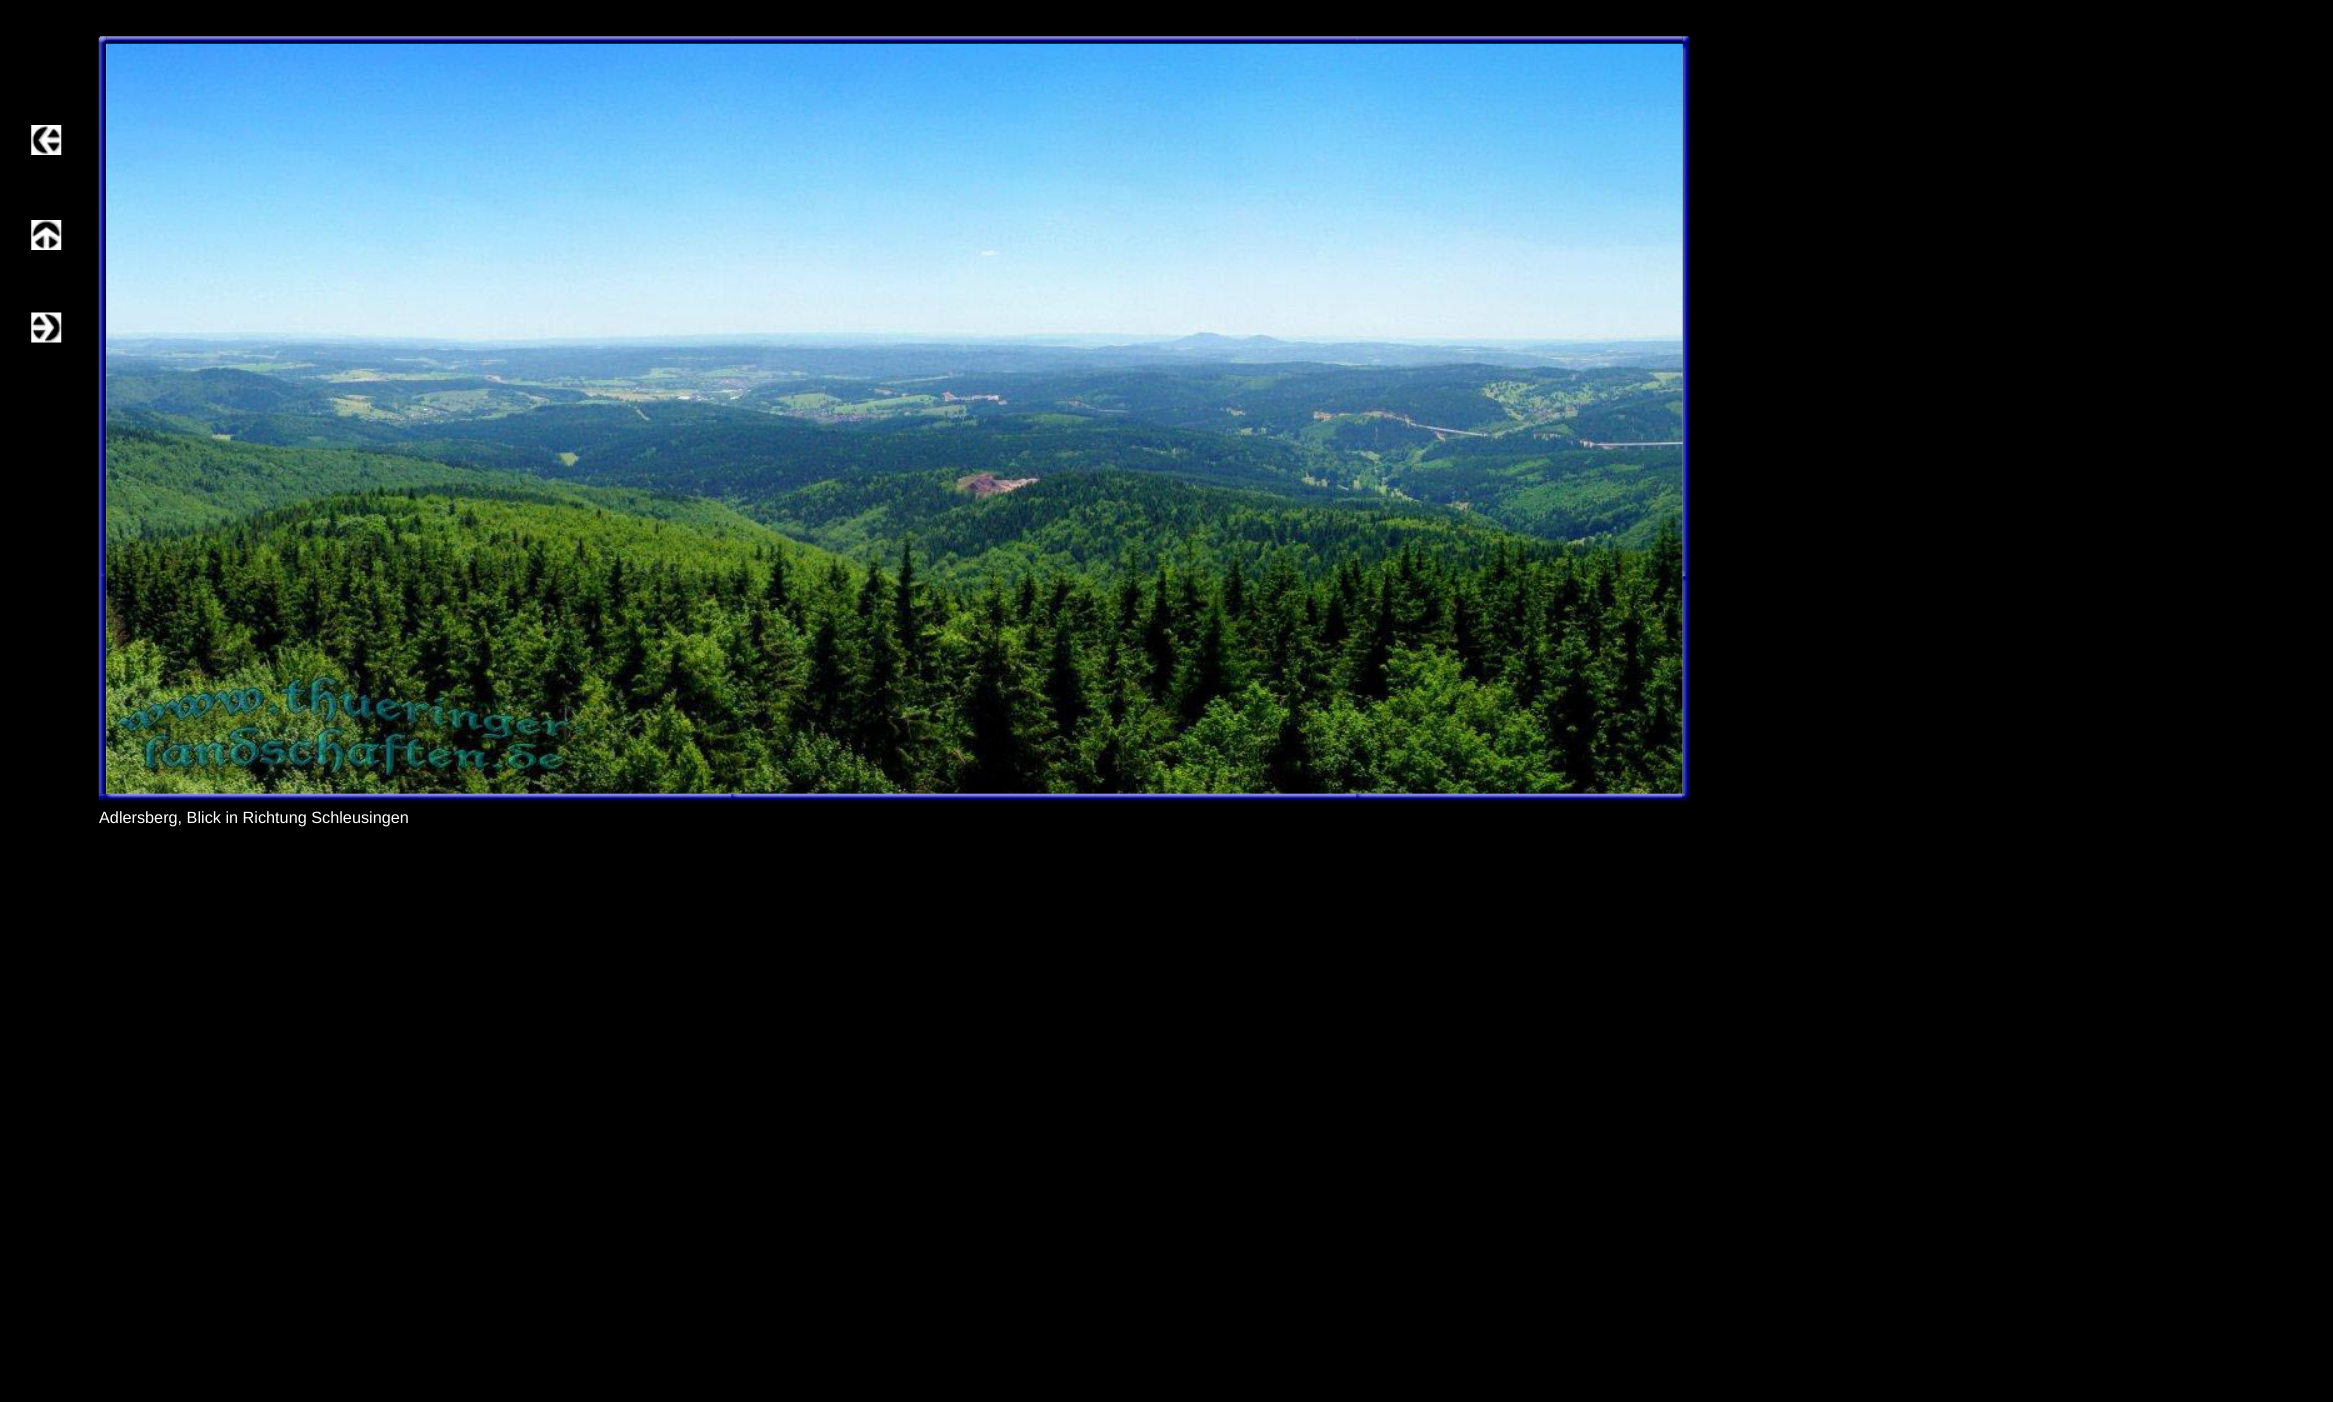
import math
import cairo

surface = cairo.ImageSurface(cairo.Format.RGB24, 2333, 1402)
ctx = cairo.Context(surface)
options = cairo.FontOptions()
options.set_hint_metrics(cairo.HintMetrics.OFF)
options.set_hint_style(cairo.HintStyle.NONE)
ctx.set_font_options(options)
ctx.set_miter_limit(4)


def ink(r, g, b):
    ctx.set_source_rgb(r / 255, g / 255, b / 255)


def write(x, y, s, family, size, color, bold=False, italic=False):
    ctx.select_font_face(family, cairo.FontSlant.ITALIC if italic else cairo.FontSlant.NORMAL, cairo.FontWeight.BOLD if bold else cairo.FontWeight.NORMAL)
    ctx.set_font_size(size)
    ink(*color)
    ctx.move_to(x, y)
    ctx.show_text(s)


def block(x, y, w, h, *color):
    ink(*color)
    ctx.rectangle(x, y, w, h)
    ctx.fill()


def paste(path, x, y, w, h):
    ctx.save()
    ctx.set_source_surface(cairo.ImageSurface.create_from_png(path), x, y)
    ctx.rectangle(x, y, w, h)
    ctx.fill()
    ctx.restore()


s1 = dict(family="Liberation Sans", size=16.25, color=(255, 255, 255))

ink(0, 0, 0)
ctx.paint()
paste("pic1.png", 31, 125, 31, 30)
paste("pic2.png", 31, 220, 31, 30)
paste("pic3.png", 31, 312, 31, 31)
paste("pic5.png", 106, 36, 1577, 8)
paste("pic7.png", 98, 43, 9, 751)
paste("pic4.png", 98, 36, 9, 8)
block(106, 44, 1577, 750, 222, 222, 222)
paste("pic9.png", 1682, 43, 8, 751)
paste("pic6.png", 1682, 36, 8, 8)
paste("pic11.png", 106, 793, 1577, 9)
paste("pic8.png", 106, 43, 1577, 751)
paste("pic10.png", 98, 793, 9, 9)
paste("pic12.png", 1682, 793, 8, 9)
write(99, 823, "Adlersberg, Blick in Richtung Schleusingen", **s1)
surface.write_to_png("screenshot.png")
